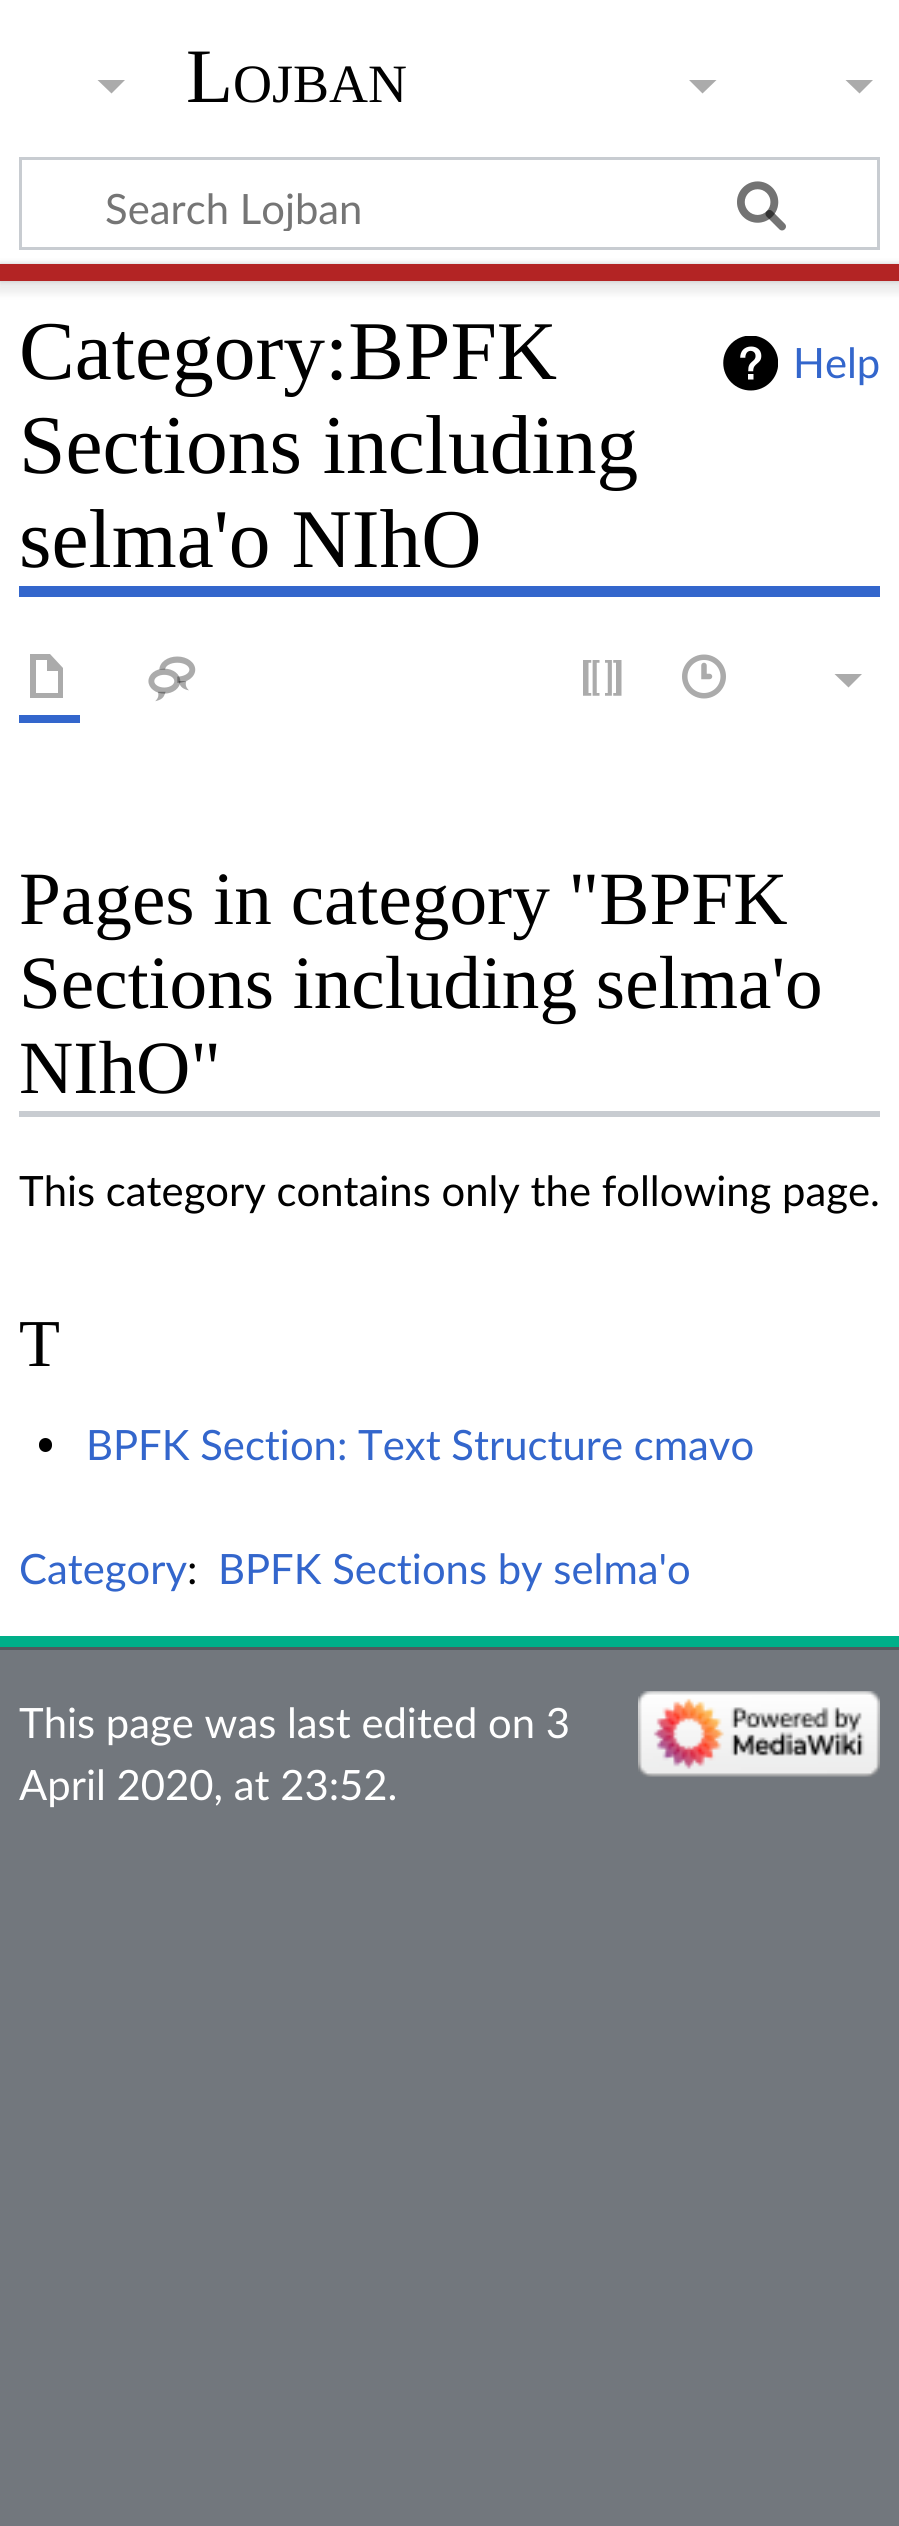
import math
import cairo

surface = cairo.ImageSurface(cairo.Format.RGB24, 899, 2526)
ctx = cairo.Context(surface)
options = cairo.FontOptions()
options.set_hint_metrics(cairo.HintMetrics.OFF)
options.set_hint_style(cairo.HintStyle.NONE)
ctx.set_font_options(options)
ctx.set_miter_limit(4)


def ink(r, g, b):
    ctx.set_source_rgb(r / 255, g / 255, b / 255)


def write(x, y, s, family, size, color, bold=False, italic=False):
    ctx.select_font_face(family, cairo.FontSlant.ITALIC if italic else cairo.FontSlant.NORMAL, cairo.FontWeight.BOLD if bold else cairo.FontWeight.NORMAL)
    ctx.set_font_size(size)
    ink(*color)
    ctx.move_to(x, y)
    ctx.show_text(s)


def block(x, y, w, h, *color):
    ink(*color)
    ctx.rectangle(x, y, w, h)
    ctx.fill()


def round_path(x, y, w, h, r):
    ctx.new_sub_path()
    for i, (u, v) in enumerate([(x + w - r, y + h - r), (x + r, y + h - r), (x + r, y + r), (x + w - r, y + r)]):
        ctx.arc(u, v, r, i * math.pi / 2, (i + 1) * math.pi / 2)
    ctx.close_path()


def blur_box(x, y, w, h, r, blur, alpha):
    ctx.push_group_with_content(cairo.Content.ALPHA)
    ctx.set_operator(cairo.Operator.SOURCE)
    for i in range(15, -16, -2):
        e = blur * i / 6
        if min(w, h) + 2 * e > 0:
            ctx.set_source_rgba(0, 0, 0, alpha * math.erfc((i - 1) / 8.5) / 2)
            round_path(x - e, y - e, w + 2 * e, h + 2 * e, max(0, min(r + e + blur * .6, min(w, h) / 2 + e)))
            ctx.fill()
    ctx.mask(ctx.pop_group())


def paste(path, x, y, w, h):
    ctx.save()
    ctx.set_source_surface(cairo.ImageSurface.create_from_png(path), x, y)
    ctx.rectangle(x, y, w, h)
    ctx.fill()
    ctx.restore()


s1 = dict(family="Liberation Serif", size=77, color=(0, 0, 0))
s2 = dict(family="Liberation Serif", size=54, color=(0, 0, 0))
s3 = dict(family="Lato", size=41.8, color=(117, 117, 117))
s4 = dict(family="Liberation Serif", size=83.5, color=(0, 0, 0))
s5 = dict(family="Lato", size=41.8, color=(51, 102, 204))
s6 = dict(family="Liberation Serif", size=75.25, color=(0, 0, 0))
s7 = dict(family="Lato", size=41.8, color=(0, 0, 0))
s8 = dict(family="Liberation Serif", size=67, color=(0, 0, 0))
s9 = dict(family="Lato", size=41.8, color=(255, 255, 255))

ink(114, 119, 125)
ctx.paint()
block(0, 0, 899, 264, 255, 255, 255)
write(186, 102, "L", **s1)
write(233, 102, "OJBAN", **s2)
ink(171, 171, 171)
ctx.new_path()
ctx.move_to(873, 80)
ctx.line_to(859.5, 93.5)
ctx.line_to(845.5, 80)
ctx.close_path()
ctx.fill()
ctx.rectangle(20.5, 158.5, 858, 90)
ink(200, 204, 209)
ctx.set_line_width(3)
ctx.stroke()
paste("pic1.png", 737, 181, 49, 50)
ctx.save()
ctx.rectangle(105, 182, 574, 49)
ctx.clip()
write(105, 224, "Search Lojban", **s3)
ctx.restore()
paste("pic2.png", 737, 181, 49, 50)
block(0, 281, 899, 1355, 255, 255, 255)
ink(0, 0, 0)
blur_box(0, 264, 899, 17, 0, 3, 0.2)
blur_box(-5, 267, 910, 27, 0, 4, 0.07)
block(0, 264, 899, 17, 179, 36, 36)
block(0, 1636, 899, 11, 0, 175, 137)
ink(171, 171, 171)
ctx.new_path()
ctx.move_to(125, 80)
ctx.line_to(111.5, 93.5)
ctx.line_to(97.5, 80)
ctx.close_path()
ctx.fill()
ctx.new_path()
ctx.move_to(716.5, 80)
ctx.line_to(702.5, 93.5)
ctx.line_to(689, 80)
ctx.close_path()
ctx.fill()
block(19, 586, 861, 11, 51, 102, 204)
write(19, 379, "Category:BPFK", **s4)
write(19, 473, "Sections including", **s4)
write(19, 567, "selma'o NIhO", **s4)
paste("pic3.png", 723, 336, 55, 55)
write(793, 378, "Help", **s5)
block(19, 715, 61, 8, 51, 102, 204)
ink(171, 171, 171)
ctx.new_path()
ctx.move_to(30, 654)
ctx.line_to(30, 698)
ctx.line_to(63, 698)
ctx.line_to(63, 668)
ctx.line_to(50, 654)
ctx.close_path()
ctx.move_to(36, 660)
ctx.line_to(47, 660)
ctx.line_to(47, 671)
ctx.line_to(58, 671)
ctx.line_to(58, 693)
ctx.line_to(36, 693)
ctx.close_path()
ctx.fill()
paste("pic4.png", 148, 656, 48, 46)
paste("pic5.png", 583, 660, 39, 36)
paste("pic6.png", 682, 654, 44, 45)
ctx.new_path()
ctx.move_to(862, 674)
ctx.line_to(848.5, 687.5)
ctx.line_to(834.5, 674)
ctx.close_path()
ctx.fill()
block(19, 1111, 861, 6, 200, 204, 209)
write(19, 924, "Pages in category \"BPFK", **s6)
write(19, 1008, "Sections including selma'o", **s6)
write(19, 1093, "NIhO\"", **s6)
write(19, 1206, "This category contains only the following page.", **s7)
write(19, 1366, "T", **s8)
round_path(39, 1438, 13, 14, 6.5)
ctx.fill()
write(86, 1460, "BPFK Section: Text Structure cmavo", **s5)
write(19, 1584, "Category", **s5)
write(187, 1584, ":", **s7)
write(218, 1584, "BPFK Sections by selma'o", **s5)
block(0, 1647, 899, 3, 84, 89, 93)
write(19, 1738, "This page was last edited on 3", **s9)
write(19, 1800, "April 2020, at 23:52.", **s9)
paste("pic7.png", 638, 1691, 242, 86)
surface.write_to_png("screenshot.png")
